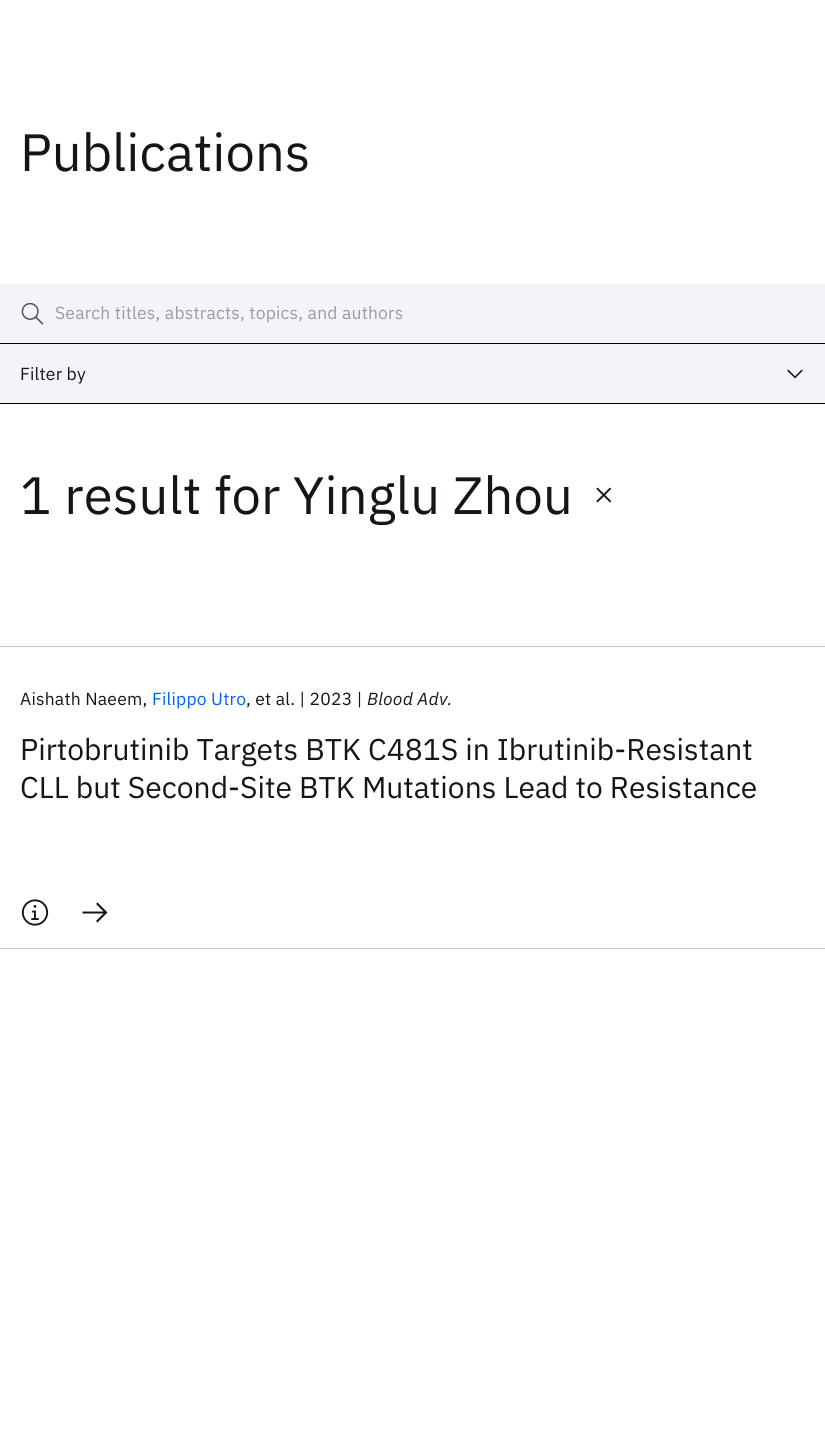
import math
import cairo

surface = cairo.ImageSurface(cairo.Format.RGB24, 825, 1439)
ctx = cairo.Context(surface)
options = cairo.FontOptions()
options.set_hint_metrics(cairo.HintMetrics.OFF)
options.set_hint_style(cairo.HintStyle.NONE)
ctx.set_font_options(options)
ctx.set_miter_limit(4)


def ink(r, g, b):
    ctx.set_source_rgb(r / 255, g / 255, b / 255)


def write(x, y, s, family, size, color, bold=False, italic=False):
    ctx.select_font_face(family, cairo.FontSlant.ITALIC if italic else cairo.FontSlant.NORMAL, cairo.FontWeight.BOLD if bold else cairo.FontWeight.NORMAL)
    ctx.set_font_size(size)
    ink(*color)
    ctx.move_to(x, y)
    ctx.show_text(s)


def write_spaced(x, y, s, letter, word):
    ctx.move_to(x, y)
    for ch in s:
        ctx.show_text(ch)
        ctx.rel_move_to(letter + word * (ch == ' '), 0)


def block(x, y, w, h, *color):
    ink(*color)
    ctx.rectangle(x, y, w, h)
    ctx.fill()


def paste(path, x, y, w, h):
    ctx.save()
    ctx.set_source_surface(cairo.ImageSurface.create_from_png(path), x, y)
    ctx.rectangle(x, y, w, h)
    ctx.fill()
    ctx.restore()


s1 = dict(family="IBM Plex Sans", size=52.5, color=(18, 22, 25))
s2 = dict(family="IBM Plex Sans", size=30, color=(18, 22, 25))

ink(255, 255, 255)
ctx.paint()
write(20, 171, "Publications", **s1)
block(0, 284, 825, 119, 242, 244, 248)
paste("pic1.png", 21, 302, 23, 23)
block(0, 343, 825, 1, 0, 0, 0)
ctx.set_font_size(17.5)
ink(154, 155, 158)
write_spaced(55, 319, "Search titles, abstracts, topics, and authors", 0.2, 0)
block(0, 403, 825, 1, 0, 0, 0)
ink(18, 22, 25)
write_spaced(20, 380, "Filter by", 0.2, 0)
paste("pic2.png", 787, 369, 16, 10)
ctx.set_font_size(52.5)
write_spaced(20, 514, "1 result for Yinglu Zhou", 0.2, 0)
paste("pic3.png", 596, 487, 16, 16)
block(0, 646, 825, 1, 193, 199, 205)
block(0, 948, 825, 1, 193, 199, 205)
ctx.set_font_size(17.5)
ink(18, 22, 25)
write_spaced(20, 705, "Aishath Naeem,", 0.2, 0)
ink(0, 98, 254)
write_spaced(152, 705, "Filippo Utro", 0.2, 0)
ink(18, 22, 25)
write_spaced(246, 705, ", et al. | 2023 |", 0.2, 0)
ctx.select_font_face("IBM Plex Sans", cairo.FontSlant.ITALIC)
write_spaced(367, 705, "Blood Adv.", 0.2, 0)
write(20, 760, "Pirtobrutinib Targets BTK C481S in Ibrutinib-Resistant", **s2)
write(20, 798, "CLL but Second-Site BTK Mutations Lead to Resistance", **s2)
paste("pic4.png", 21, 899, 28, 27)
ctx.new_path()
ctx.move_to(97.5, 902.5)
ctx.line_to(96, 904)
ctx.line_to(103.5, 911.5)
ctx.line_to(82.5, 911.5)
ctx.line_to(82.5, 913.5)
ctx.line_to(103.5, 913.5)
ctx.line_to(96, 921)
ctx.line_to(97.5, 922.5)
ctx.line_to(107.5, 912.5)
ctx.close_path()
ctx.fill()
surface.write_to_png("screenshot.png")
